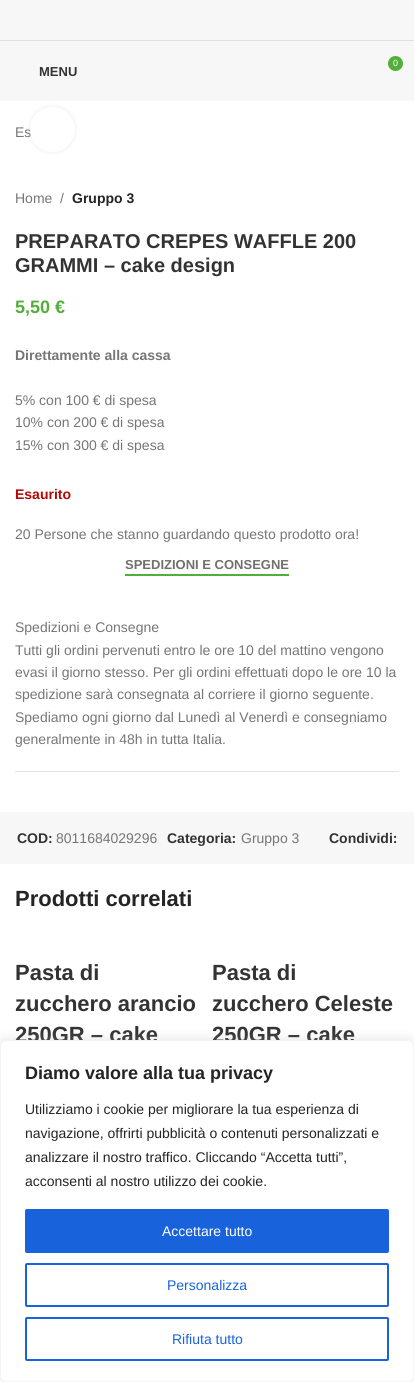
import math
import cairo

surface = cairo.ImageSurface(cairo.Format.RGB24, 414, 1382)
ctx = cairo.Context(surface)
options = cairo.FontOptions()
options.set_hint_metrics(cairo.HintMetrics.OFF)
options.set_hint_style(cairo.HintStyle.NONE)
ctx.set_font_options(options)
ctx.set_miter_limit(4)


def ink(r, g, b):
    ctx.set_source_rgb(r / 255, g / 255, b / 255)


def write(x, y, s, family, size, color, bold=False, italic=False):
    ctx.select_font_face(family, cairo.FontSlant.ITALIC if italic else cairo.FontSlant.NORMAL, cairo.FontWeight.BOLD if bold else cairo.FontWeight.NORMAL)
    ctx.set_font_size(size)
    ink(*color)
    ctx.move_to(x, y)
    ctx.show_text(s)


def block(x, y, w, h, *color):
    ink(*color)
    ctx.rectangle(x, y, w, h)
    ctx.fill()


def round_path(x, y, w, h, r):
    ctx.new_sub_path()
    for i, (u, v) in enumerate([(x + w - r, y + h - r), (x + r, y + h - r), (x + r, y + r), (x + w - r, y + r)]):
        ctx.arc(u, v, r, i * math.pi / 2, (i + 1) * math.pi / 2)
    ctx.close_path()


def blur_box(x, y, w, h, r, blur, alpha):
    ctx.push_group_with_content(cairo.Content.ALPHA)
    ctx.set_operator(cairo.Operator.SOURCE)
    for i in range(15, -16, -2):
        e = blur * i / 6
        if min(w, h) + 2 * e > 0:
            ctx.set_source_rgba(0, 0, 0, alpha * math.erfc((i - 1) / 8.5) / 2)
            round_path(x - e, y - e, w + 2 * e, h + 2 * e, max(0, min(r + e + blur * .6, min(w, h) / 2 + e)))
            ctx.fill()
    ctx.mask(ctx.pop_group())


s1 = dict(family="Liberation Sans", size=9, color=(255, 255, 255))
s2 = dict(family="Liberation Sans", size=13, color=(51, 51, 51), bold=True)
s3 = dict(family="Liberation Sans", size=14, color=(118, 118, 118))
s4 = dict(family="Liberation Sans", size=14, color=(36, 36, 36), bold=True)
s5 = dict(family="Liberation Sans", size=20, color=(51, 51, 51), bold=True)
s6 = dict(family="Liberation Sans", size=18, color=(83, 175, 58), bold=True)
s7 = dict(family="Liberation Sans", size=14, color=(118, 118, 118), bold=True)
s8 = dict(family="Liberation Sans", size=14, color=(181, 8, 8), bold=True)
s9 = dict(family="Liberation Sans", size=13, color=(112, 112, 112), bold=True)
s10 = dict(family="Liberation Sans", size=14, color=(51, 51, 51), bold=True)
s11 = dict(family="Liberation Sans", size=22, color=(36, 36, 36), bold=True)
s12 = dict(family="Liberation Sans", size=22, color=(51, 51, 51), bold=True)
s13 = dict(family="Liberation Sans", size=18, color=(36, 36, 36), bold=True)
s14 = dict(family="Liberation Sans", size=14, color=(36, 36, 36))
s15 = dict(family="Liberation Sans", size=14, color=(255, 255, 255))
s16 = dict(family="Liberation Sans", size=14, color=(24, 99, 220))

ink(255, 255, 255)
ctx.paint()
block(0, 0, 414, 40, 247, 247, 247)
block(0, 40, 414, 1, 223, 223, 222)
ink(0, 0, 0)
blur_box(30, 107, 45, 45, 22.5, 2.5, 0.08)
block(0, 41, 414, 60, 247, 247, 247)
ink(83, 175, 58)
ctx.arc(395.5, 63.5, 7.5, 0, 2 * math.pi)
ctx.fill()
write(393, 66, "0", **s1)
write(39, 76, "MENU", **s2)
write(15, 137, "Es", **s3)
ink(255, 255, 255)
ctx.new_path()
ctx.arc(52.5, 129.5, 22.5, 0, 2 * math.pi)
ctx.fill()
write(15, 203, "Home", **s3)
write(60, 203, "/", **s3)
write(72, 203, "Gruppo 3", **s4)
write(15, 248, "PREPARATO CREPES WAFFLE 200", **s5)
write(15, 272, "GRAMMI – cake design", **s5)
write(15, 313, "5,50 €", **s6)
write(15, 360, "Direttamente alla cassa", **s7)
write(15, 405, "5% con 100 € di spesa", **s3)
write(15, 427, "10% con 200 € di spesa", **s3)
write(15, 450, "15% con 300 € di spesa", **s3)
write(15, 499, "Esaurito", **s8)
write(15, 539, "20 Persone che stanno guardando questo prodotto ora!", **s3)
write(125, 569, "SPEDIZIONI E CONSEGNE", **s9)
block(125, 574, 164, 2, 83, 175, 58)
write(15, 632, "Spedizioni e Consegne", **s3)
write(15, 655, "Tutti gli ordini pervenuti entro le ore 10 del mattino vengono", **s3)
write(15, 677, "evasi il giorno stesso. Per gli ordini effettuati dopo le ore 10 la", **s3)
write(15, 699, "spedizione sarà consegnata al corriere il giorno seguente.", **s3)
write(15, 722, "Spediamo ogni giorno dal Lunedì al Venerdì e consegniamo", **s3)
write(15, 744, "generalmente in 48h in tutta Italia.", **s3)
block(15, 771, 384, 1, 228, 228, 228)
block(0, 812, 414, 52, 247, 247, 247)
write(17, 843, "COD:", **s10)
write(56, 843, "8011684029296", **s3)
write(167, 843, "Categoria:", **s10)
write(241, 843, "Gruppo 3", **s3)
write(329, 843, "Condividi:", **s10)
write(15, 906, "Prodotti correlati", **s11)
write(15, 980, "Pasta di", **s12)
write(15, 1011, "zucchero arancio", **s12)
write(15, 1042, "250GR – cake", **s12)
write(212, 980, "Pasta di", **s12)
write(212, 1011, "zucchero Celeste", **s12)
write(212, 1042, "250GR – cake", **s12)
ink(172, 171, 171)
blur_box(0, 1039, 414, 342, 6, 5, 0.3)
ink(255, 255, 255)
round_path(0.5, 1040.5, 413, 341, 5.5)
ctx.fill_preserve()
ink(244, 244, 244)
ctx.set_line_width(1)
ctx.stroke()
write(25, 1079, "Diamo valore alla tua privacy", **s13)
write(25, 1114, "Utilizziamo i cookie per migliorare la tua esperienza di", **s14)
write(25, 1138, "navigazione, offrirti pubblicità o contenuti personalizzati e", **s14)
write(25, 1162, "analizzare il nostro traffico. Cliccando “Accetta tutti”,", **s14)
write(25, 1186, "acconsenti al nostro utilizzo dei cookie.", **s14)
ink(24, 99, 220)
round_path(26, 1210, 362, 42, 1)
ctx.fill_preserve()
ctx.set_line_width(2)
ctx.stroke()
write(162, 1236, "Accettare tutto", **s15)
round_path(26, 1264, 362, 42, 1)
ink(24, 99, 220)
ctx.stroke()
write(167, 1290, "Personalizza", **s16)
round_path(26, 1318, 362, 42, 1)
ctx.stroke()
write(172, 1344, "Rifiuta tutto", **s16)
surface.write_to_png("screenshot.png")
